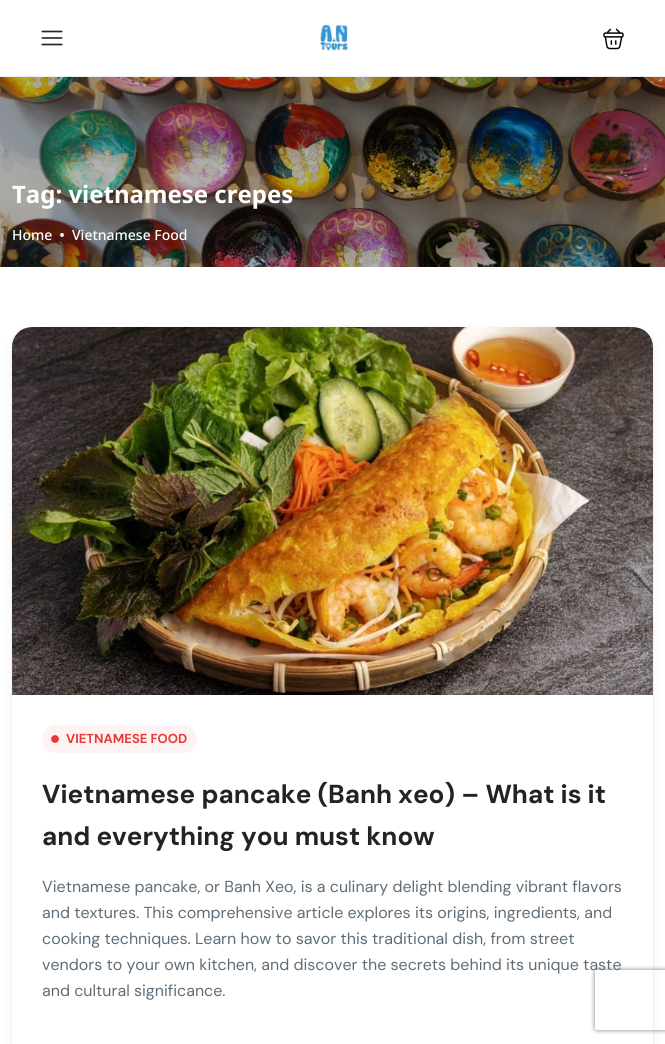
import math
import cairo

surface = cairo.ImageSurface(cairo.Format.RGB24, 665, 1044)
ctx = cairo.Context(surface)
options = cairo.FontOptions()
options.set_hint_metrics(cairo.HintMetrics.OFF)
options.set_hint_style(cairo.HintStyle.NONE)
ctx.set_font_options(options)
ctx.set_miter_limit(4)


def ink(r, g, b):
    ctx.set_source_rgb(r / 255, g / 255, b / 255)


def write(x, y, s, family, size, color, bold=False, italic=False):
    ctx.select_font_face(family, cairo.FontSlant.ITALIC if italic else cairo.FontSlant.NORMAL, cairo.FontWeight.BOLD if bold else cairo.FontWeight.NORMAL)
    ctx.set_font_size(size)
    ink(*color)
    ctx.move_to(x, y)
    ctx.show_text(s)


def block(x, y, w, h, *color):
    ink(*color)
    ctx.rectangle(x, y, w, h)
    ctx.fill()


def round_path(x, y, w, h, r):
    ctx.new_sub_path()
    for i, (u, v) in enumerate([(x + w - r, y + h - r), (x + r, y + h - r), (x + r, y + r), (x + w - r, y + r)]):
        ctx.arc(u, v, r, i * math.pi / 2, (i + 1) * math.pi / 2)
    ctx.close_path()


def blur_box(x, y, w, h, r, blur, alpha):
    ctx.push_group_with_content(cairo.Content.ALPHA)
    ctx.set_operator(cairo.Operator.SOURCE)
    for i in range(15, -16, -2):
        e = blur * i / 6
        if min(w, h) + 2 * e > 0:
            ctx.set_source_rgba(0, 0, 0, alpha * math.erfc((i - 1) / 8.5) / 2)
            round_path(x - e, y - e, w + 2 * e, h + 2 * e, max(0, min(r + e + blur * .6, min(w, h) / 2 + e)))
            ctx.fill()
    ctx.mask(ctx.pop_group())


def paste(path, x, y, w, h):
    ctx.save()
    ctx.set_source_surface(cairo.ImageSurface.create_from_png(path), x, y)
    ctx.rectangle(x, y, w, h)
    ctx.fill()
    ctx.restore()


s1 = dict(family="Noto Sans", size=24, color=(255, 255, 255), bold=True)
s2 = dict(family="Noto Sans Medium", size=14, color=(255, 255, 255))
s3 = dict(family="DM Sans", size=13, color=(234, 57, 57), bold=True)
s4 = dict(family="DM Sans", size=26, color=(35, 35, 35), bold=True)
s5 = dict(family="DM Sans", size=16, color=(94, 109, 119))

ink(255, 255, 255)
ctx.paint()
block(0, 76, 665, 1, 234, 238, 243)
paste("pic1.png", 41, 30, 22, 16)
paste("pic2.png", 319, 24, 29, 28)
paste("pic3.png", 603, 28, 21, 22)
paste("pic4.png", 0, 77, 665, 190)
write(12, 203, "Tag: vietnamese crepes", **s1)
write(12, 240, "Home", **s2)
ink(234, 238, 243)
ctx.new_path()
ctx.arc(62, 235, 2, 0, 2 * math.pi)
ctx.fill()
write(72, 240, "Vietnamese Food", **s2)
ink(0, 0, 0)
blur_box(12, 331, 641, 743, 20, 6, 0.05)
blur_box(12, 328, 641, 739, 20, 1, 0.08)
ink(255, 255, 255)
round_path(12, 327, 641, 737, 20)
ctx.fill()
paste("pic5.png", 12, 327, 641, 368)
ink(254, 243, 243)
round_path(42, 725, 155, 28, 14)
ctx.fill()
paste("pic6.png", 51, 735, 8, 8)
write(66, 743, "VIETNAMESE FOOD", **s3)
write(42, 803, "Vietnamese pancake (Banh xeo) – What is it", **s4)
write(42, 845, "and everything you must know", **s4)
write(42, 892, "Vietnamese pancake, or Banh Xeo, is a culinary delight blending vibrant flavors", **s5)
write(42, 918, "and textures. This comprehensive article explores its origins, ingredients, and", **s5)
write(42, 944, "cooking techniques. Learn how to savor this traditional dish, from street", **s5)
write(42, 970, "vendors to your own kitchen, and discover the secrets behind its unique taste", **s5)
write(42, 996, "and cultural significance.", **s5)
ctx.save()
ctx.set_fill_rule(cairo.FillRule.EVEN_ODD)
ctx.new_path()
ctx.move_to(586, 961)
ctx.line_to(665, 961)
ctx.line_to(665, 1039)
ctx.line_to(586, 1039)
ctx.close_path()
ctx.move_to(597, 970)
ctx.line_to(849, 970)
ctx.curve_to(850, 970, 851, 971, 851, 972)
ctx.line_to(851, 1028)
ctx.curve_to(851, 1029, 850, 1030, 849, 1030)
ctx.line_to(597, 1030)
ctx.curve_to(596, 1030, 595, 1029, 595, 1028)
ctx.line_to(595, 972)
ctx.curve_to(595, 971, 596, 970, 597, 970)
ctx.close_path()
ctx.clip()
ink(128, 128, 128)
blur_box(595, 970, 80, 60, 2, 2.5, 1)
ctx.restore()
surface.write_to_png("screenshot.png")
